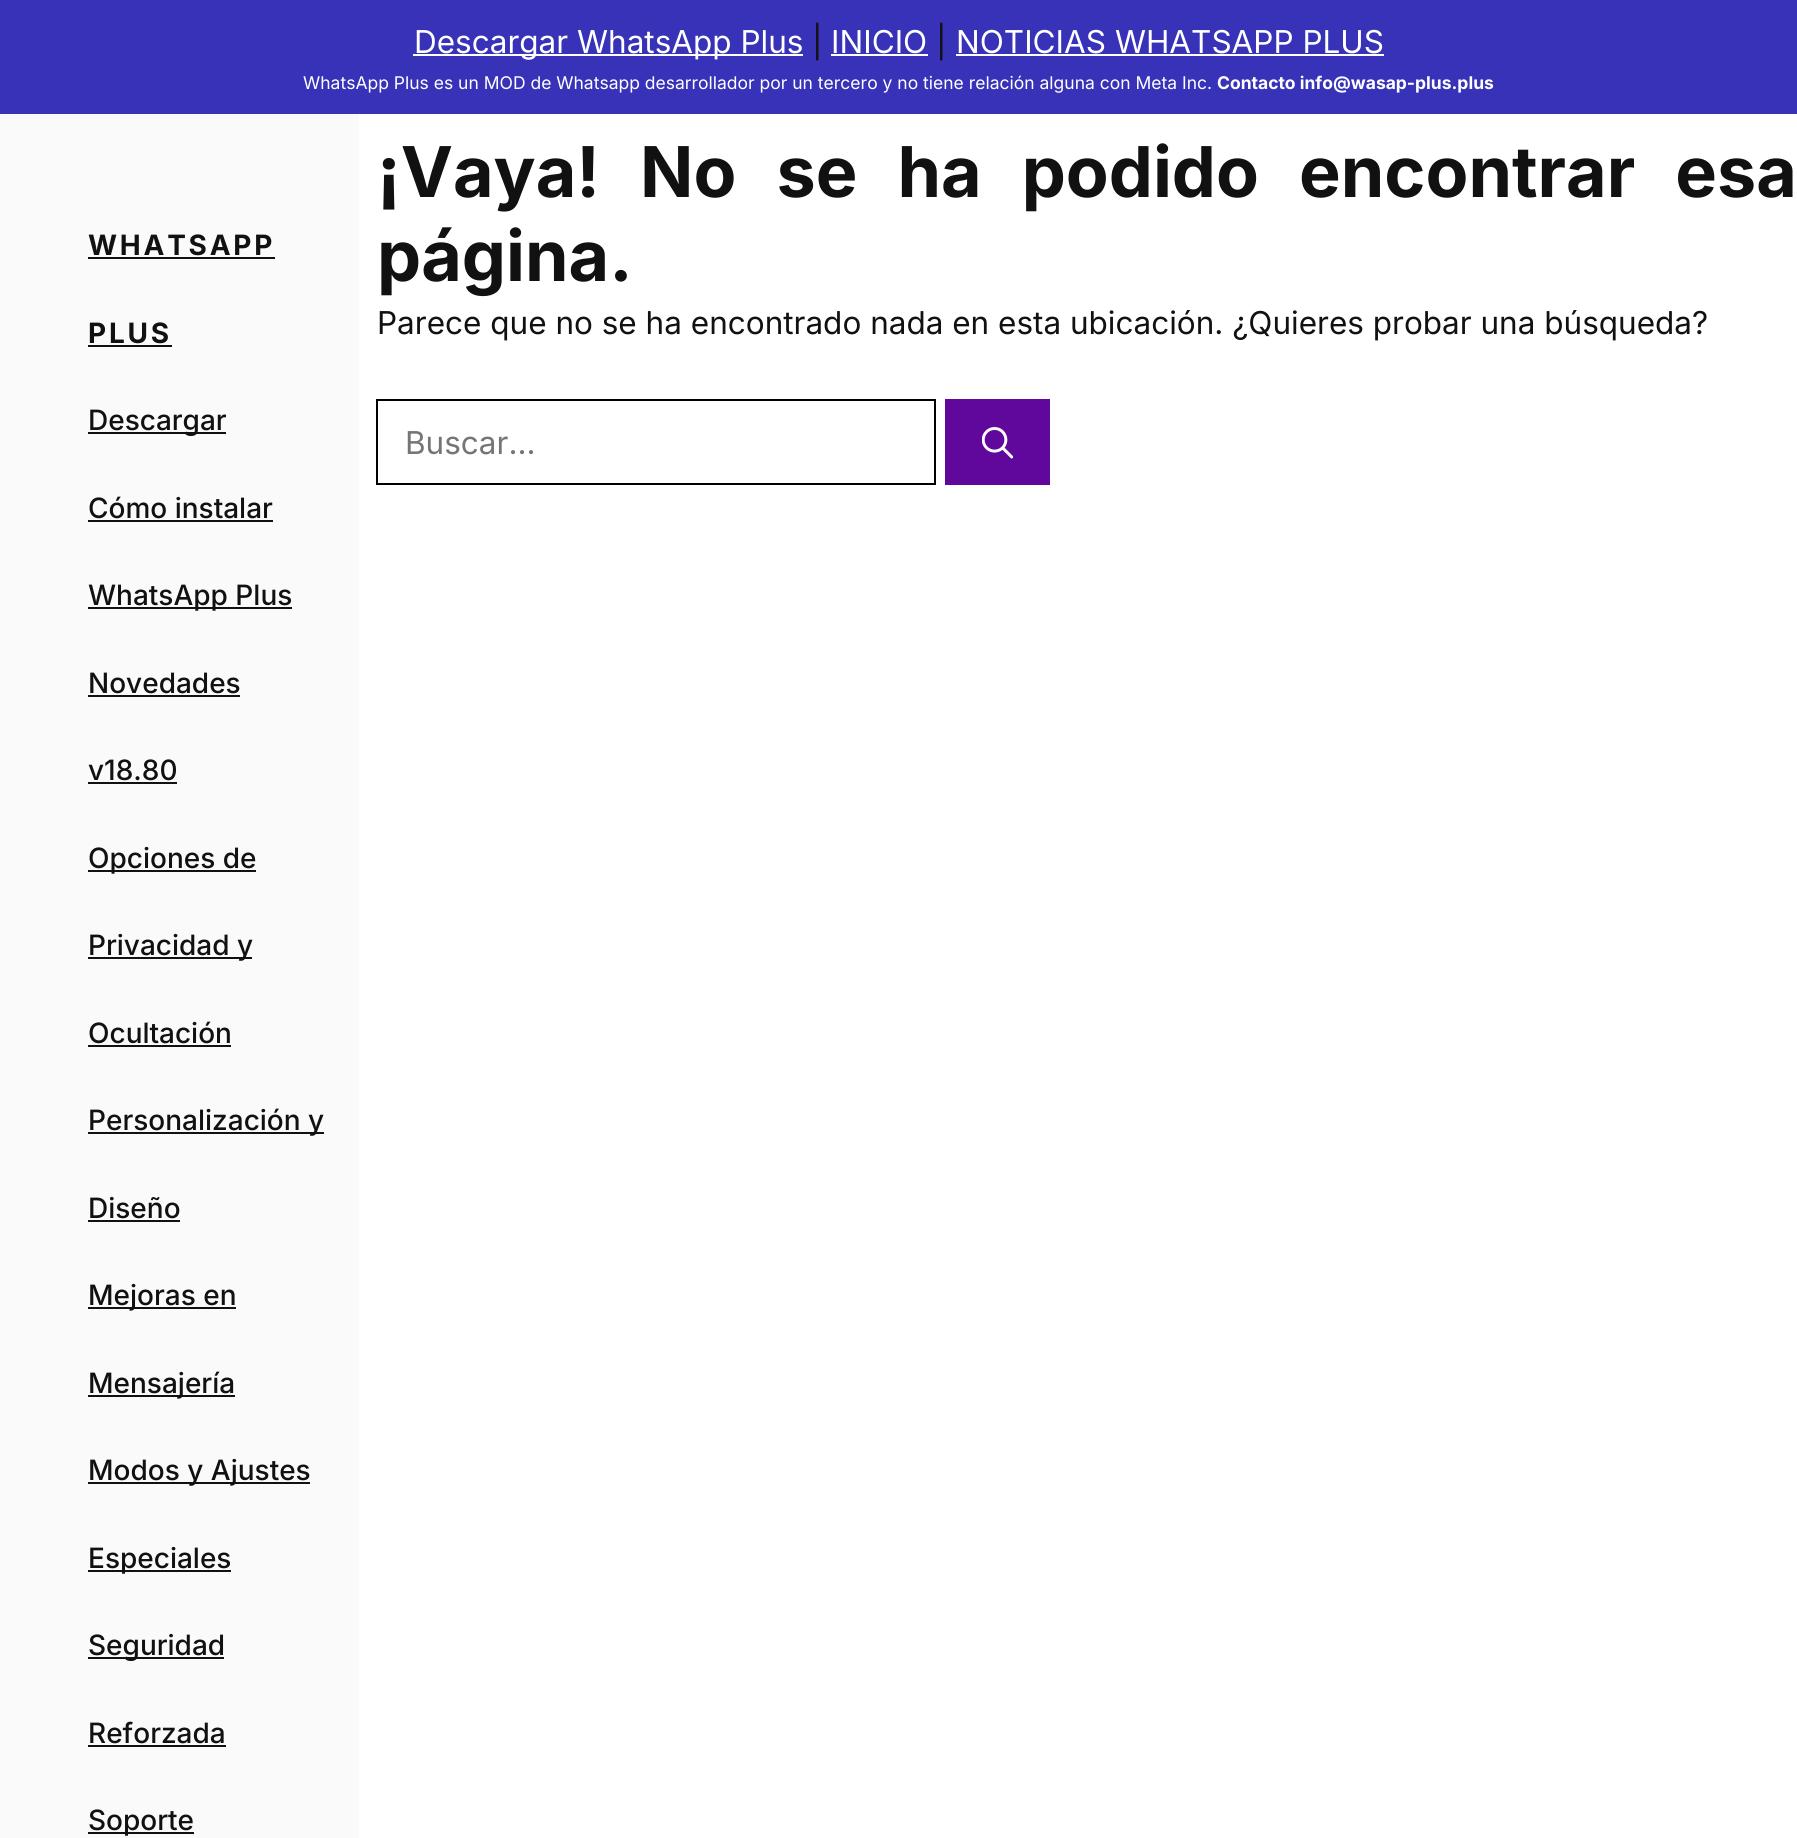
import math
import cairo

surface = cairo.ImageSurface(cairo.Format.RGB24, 1797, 1838)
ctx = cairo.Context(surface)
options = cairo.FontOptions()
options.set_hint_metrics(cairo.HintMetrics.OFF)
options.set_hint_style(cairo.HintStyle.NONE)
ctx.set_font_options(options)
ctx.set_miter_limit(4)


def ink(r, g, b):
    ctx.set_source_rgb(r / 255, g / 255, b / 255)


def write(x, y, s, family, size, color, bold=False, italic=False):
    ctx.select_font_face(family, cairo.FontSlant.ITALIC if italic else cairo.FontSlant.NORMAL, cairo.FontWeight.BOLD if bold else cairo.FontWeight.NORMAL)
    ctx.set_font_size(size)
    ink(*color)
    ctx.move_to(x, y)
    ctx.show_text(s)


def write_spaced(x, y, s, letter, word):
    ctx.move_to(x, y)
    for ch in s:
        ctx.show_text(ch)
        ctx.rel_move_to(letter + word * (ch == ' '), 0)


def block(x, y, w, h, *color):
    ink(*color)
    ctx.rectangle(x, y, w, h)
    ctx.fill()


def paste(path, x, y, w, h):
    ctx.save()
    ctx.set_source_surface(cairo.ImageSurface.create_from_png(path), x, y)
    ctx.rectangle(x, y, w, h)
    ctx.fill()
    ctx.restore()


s1 = dict(family="Inter", size=31.5, color=(255, 255, 255))
s2 = dict(family="Inter", size=31.5, color=(17, 17, 17))
s3 = dict(family="Inter", size=17.5, color=(255, 255, 255))
s4 = dict(family="Inter", size=17.5, color=(255, 255, 255), bold=True)
s5 = dict(family="Inter Medium", size=28, color=(17, 17, 17))
s6 = dict(family="Inter", size=70, color=(17, 17, 17), bold=True)
s7 = dict(family="Inter", size=31.5, color=(117, 117, 117))

ink(255, 255, 255)
ctx.paint()
block(0, 0, 1797, 114, 56, 50, 184)
block(413, 54, 390, 2, 255, 255, 255)
write(414, 53, "Descargar WhatsApp Plus", **s1)
write(812, 53, "|", **s2)
write(831, 53, "INICIO", **s1)
block(831, 54, 97, 2, 255, 255, 255)
write(936, 53, "|", **s2)
write(956, 53, "NOTICIAS WHATSAPP PLUS", **s1)
block(956, 54, 428, 2, 255, 255, 255)
write(303, 89, "WhatsApp Plus es un MOD de Whatsapp desarrollador por un tercero y no tiene relación alguna con Meta Inc.", **s3)
write(1217, 89, "Contacto info@wasap-plus.plus", **s4)
block(0, 114, 359, 1724, 250, 250, 250)
ctx.set_font_size(28)
ink(17, 17, 17)
write_spaced(88, 255, "WHATSAPP", 2.75, 0)
block(88, 257, 187, 2, 17, 17, 17)
write_spaced(88, 343, "PLUS", 2.75, 0)
block(88, 345, 84, 2, 17, 17, 17)
block(88, 432, 138, 2, 17, 17, 17)
write(88, 430, "Descargar", **s5)
write(88, 518, "Cómo instalar", **s5)
block(88, 520, 185, 2, 17, 17, 17)
block(88, 607, 204, 2, 17, 17, 17)
write(88, 605, "WhatsApp Plus", **s5)
write(88, 693, "Novedades", **s5)
block(88, 695, 152, 2, 17, 17, 17)
write(88, 780, "v18.80", **s5)
block(88, 782, 89, 2, 17, 17, 17)
block(88, 870, 168, 2, 17, 17, 17)
write(88, 868, "Opciones de", **s5)
block(88, 957, 164, 2, 17, 17, 17)
write(88, 955, "Privacidad y", **s5)
write(88, 1043, "Ocultación", **s5)
block(88, 1045, 143, 2, 17, 17, 17)
block(88, 1132, 236, 2, 17, 17, 17)
write(88, 1130, "Personalización y", **s5)
write(88, 1218, "Diseño", **s5)
block(88, 1220, 92, 2, 17, 17, 17)
block(88, 1307, 148, 2, 17, 17, 17)
write(88, 1305, "Mejoras en", **s5)
block(88, 1395, 147, 2, 17, 17, 17)
write(88, 1393, "Mensajería", **s5)
block(88, 1482, 222, 2, 17, 17, 17)
write(88, 1480, "Modos y Ajustes", **s5)
block(88, 1570, 143, 2, 17, 17, 17)
write(88, 1568, "Especiales", **s5)
block(88, 1657, 136, 2, 17, 17, 17)
write(88, 1655, "Seguridad", **s5)
write(88, 1743, "Reforzada", **s5)
block(88, 1745, 138, 2, 17, 17, 17)
block(88, 1832, 106, 2, 17, 17, 17)
write(88, 1830, "Soporte", **s5)
ctx.select_font_face("Inter", cairo.FontSlant.NORMAL, cairo.FontWeight.BOLD)
ctx.set_font_size(70)
write_spaced(377, 197, "¡Vaya! No se ha podido encontrar esa", 0, 23.5)
write(377, 281, "página.", **s6)
write(377, 334, "Parece que no se ha encontrado nada en esta ubicación. ¿Quieres probar una búsqueda?", **s2)
ctx.rectangle(377, 400, 558, 84)
ink(0, 0, 0)
ctx.stroke()
write(405, 454, "Buscar...", **s7)
block(945, 399, 105, 86, 96, 8, 156)
paste("pic1.png", 982, 427, 31, 32)
surface.write_to_png("screenshot.png")
